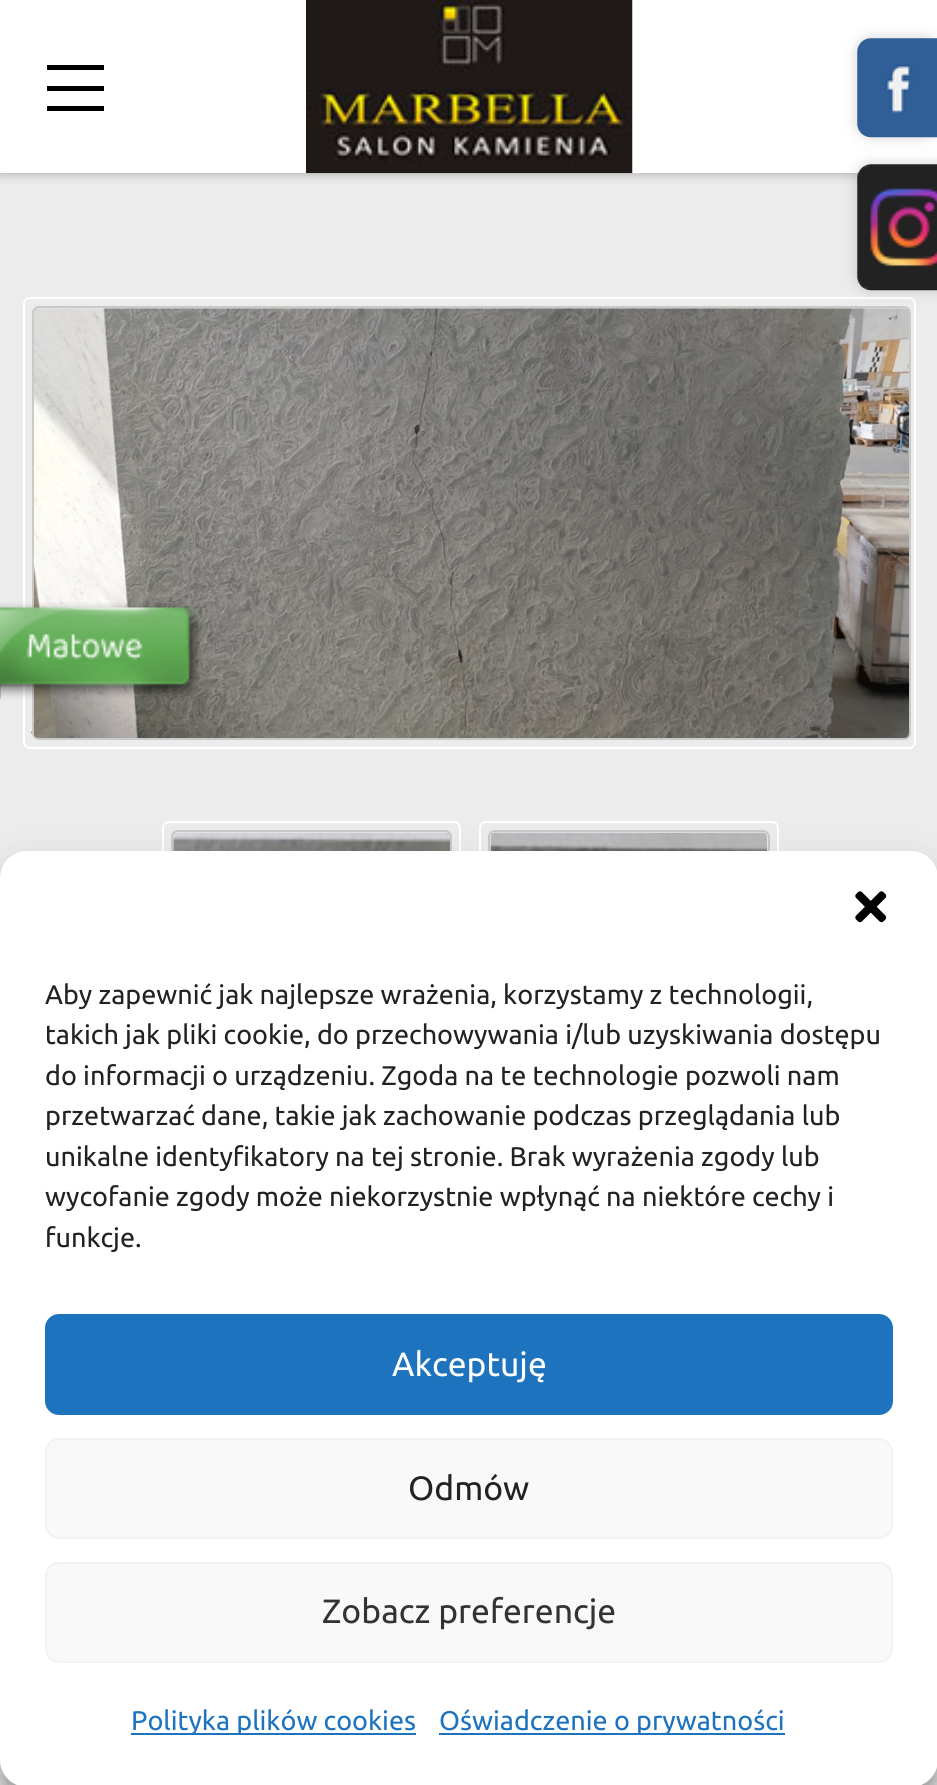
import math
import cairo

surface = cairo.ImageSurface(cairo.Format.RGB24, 937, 1785)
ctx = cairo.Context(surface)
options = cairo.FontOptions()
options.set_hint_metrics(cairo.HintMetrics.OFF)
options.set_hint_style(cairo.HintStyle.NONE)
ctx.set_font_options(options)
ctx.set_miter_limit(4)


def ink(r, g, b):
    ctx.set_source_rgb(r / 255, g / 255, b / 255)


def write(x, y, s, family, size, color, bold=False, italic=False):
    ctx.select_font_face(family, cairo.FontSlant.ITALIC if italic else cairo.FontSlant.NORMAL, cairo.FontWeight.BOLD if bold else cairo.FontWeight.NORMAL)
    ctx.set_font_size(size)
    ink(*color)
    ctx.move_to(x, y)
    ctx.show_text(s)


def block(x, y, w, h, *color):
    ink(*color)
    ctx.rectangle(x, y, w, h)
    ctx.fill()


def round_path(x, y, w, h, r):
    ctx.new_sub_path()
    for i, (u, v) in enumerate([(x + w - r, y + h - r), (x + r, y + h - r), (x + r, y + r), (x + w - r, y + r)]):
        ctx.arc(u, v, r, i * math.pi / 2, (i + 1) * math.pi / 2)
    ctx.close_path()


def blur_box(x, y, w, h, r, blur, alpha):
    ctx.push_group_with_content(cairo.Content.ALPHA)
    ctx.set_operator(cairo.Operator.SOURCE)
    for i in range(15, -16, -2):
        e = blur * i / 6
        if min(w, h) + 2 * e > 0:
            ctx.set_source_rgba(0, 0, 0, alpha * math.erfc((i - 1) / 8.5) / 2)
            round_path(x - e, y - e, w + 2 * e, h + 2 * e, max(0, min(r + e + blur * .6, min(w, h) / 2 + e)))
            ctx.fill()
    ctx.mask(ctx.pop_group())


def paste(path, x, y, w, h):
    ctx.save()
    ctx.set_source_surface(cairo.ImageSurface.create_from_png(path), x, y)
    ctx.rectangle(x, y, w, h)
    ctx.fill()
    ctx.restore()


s1 = dict(family="Ubuntu", size=27, color=(34, 34, 34))
s2 = dict(family="Ubuntu", size=33.75, color=(255, 255, 255))
s3 = dict(family="Ubuntu", size=33.75, color=(34, 34, 34))
s4 = dict(family="Ubuntu", size=33.75, color=(51, 51, 51))
s5 = dict(family="Ubuntu", size=27, color=(30, 115, 190))

ink(236, 236, 236)
ctx.paint()
ink(0, 0, 0)
blur_box(0, 2, 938, 174, 0, 4.5, 0.2)
block(0, 0, 937, 173, 255, 255, 255)
block(47, 65, 57, 5, 0, 0, 0)
block(47, 86, 57, 5, 0, 0, 0)
block(47, 106, 57, 5, 0, 0, 0)
paste("pic1.png", 306, 0, 327, 174)
ink(0, 0, 0)
blur_box(857, 38, 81, 99, 14, 7, 0.17)
paste("pic2.png", 857, 38, 80, 100)
round_path(24, 298, 891, 450, 6)
ink(255, 255, 255)
ctx.stroke()
ctx.save()
ctx.set_fill_rule(cairo.FillRule.EVEN_ODD)
ctx.new_path()
ctx.move_to(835, 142)
ctx.line_to(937, 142)
ctx.line_to(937, 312)
ctx.line_to(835, 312)
ctx.close_path()
ctx.move_to(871, 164)
ctx.line_to(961, 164)
ctx.line_to(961, 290)
ctx.line_to(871, 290)
ctx.curve_to(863.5, 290, 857, 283.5, 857, 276)
ctx.line_to(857, 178)
ctx.curve_to(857, 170.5, 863.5, 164, 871, 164)
ctx.close_path()
ctx.clip()
ink(0, 0, 0)
blur_box(857, 164, 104, 126, 14, 7, 0.17)
ctx.restore()
paste("pic3.png", 857, 164, 80, 127)
ctx.new_path()
ctx.move_to(31.5, 732.5)
ctx.line_to(907, 732.5)
ink(81, 88, 117)
ctx.set_line_width(2.2)
ctx.set_dash([6.75, 4.52])
ctx.stroke()
round_path(33, 307, 877, 432, 6)
ink(201, 201, 201)
ctx.set_line_width(2)
ctx.set_dash([])
ctx.stroke()
paste("pic4.png", 33, 308, 876, 430)
paste("pic5.png", 0, 602, 203, 98)
round_path(163, 822, 297, 302, 6)
ink(255, 255, 255)
ctx.stroke()
round_path(172, 831, 279, 277, 6)
ink(201, 201, 201)
ctx.stroke()
paste("pic6.png", 173, 832, 277, 19)
round_path(480, 822, 298, 302, 6)
ink(255, 255, 255)
ctx.stroke()
round_path(489, 831, 280, 277, 6)
ink(201, 201, 201)
ctx.stroke()
paste("pic7.png", 490, 832, 278, 19)
ink(0, 0, 0)
blur_box(0, 864, 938, 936, 27, 7, 0.23)
blur_box(0, 873, 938, 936, 27, 22.5, 0.19)
ink(255, 255, 255)
round_path(0, 851, 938, 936, 27)
ctx.fill()
paste("pic8.png", 855, 891, 32, 32)
write(45, 1004, "Aby zapewnić jak najlepsze wrażenia, korzystamy z technologii,", **s1)
write(45, 1044, "takich jak pliki cookie, do przechowywania i/lub uzyskiwania dostępu", **s1)
write(45, 1085, "do informacji o urządzeniu. Zgoda na te technologie pozwoli nam", **s1)
write(45, 1125, "przetwarzać dane, takie jak zachowanie podczas przeglądania lub", **s1)
write(45, 1166, "unikalne identyfikatory na tej stronie. Brak wyrażenia zgody lub", **s1)
write(45, 1206, "wycofanie zgody może niekorzystnie wpłynąć na niektóre cechy i", **s1)
write(45, 1247, "funkcje.", **s1)
ink(30, 115, 190)
round_path(46, 1315, 846, 99, 13)
ctx.fill_preserve()
ctx.stroke()
write(392, 1376, "Akceptuję", **s2)
ink(249, 249, 249)
round_path(46, 1439, 846, 99, 13)
ctx.fill_preserve()
ink(242, 242, 242)
ctx.stroke()
write(408, 1500, "Odmów", **s3)
ink(249, 249, 249)
round_path(46, 1563, 846, 99, 13)
ctx.fill_preserve()
ink(242, 242, 242)
ctx.stroke()
write(322, 1623, "Zobacz preferencje", **s4)
block(131, 1733, 285, 2, 30, 115, 190)
write(131, 1730, "Polityka plików cookies", **s5)
block(439, 1733, 346, 2, 30, 115, 190)
write(439, 1730, "Oświadczenie o prywatności", **s5)
surface.write_to_png("screenshot.png")
